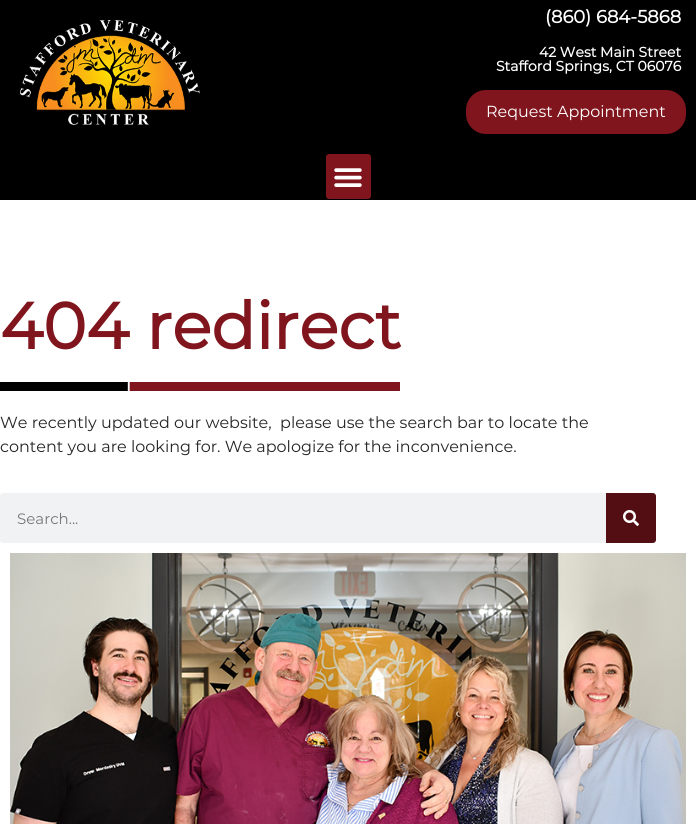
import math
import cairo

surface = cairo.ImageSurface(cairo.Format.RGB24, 696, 824)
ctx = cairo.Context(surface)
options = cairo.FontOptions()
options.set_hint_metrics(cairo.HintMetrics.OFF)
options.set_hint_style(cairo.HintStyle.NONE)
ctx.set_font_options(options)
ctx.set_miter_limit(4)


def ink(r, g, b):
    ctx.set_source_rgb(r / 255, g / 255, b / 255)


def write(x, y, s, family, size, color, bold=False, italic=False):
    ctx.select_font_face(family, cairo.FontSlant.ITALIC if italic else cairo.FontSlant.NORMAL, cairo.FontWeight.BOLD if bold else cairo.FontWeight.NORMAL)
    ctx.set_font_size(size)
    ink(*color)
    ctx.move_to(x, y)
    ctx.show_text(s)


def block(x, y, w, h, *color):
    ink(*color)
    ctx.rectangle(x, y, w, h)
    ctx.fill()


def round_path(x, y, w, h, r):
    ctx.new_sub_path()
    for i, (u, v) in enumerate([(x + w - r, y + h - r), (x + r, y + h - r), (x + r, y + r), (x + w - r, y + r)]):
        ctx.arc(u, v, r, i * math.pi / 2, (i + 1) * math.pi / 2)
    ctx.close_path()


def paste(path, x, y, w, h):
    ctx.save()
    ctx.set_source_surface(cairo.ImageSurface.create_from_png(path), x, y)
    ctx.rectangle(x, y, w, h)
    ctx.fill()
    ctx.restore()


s1 = dict(family="Montserrat", size=18, color=(255, 255, 255), bold=True)
s2 = dict(family="Montserrat", size=14, color=(255, 255, 255), bold=True)
s3 = dict(family="Montserrat", size=16, color=(255, 255, 255))
s4 = dict(family="Montserrat", size=65, color=(128, 21, 29), bold=True)
s5 = dict(family="Montserrat", size=16, color=(37, 37, 37))
s6 = dict(family="Montserrat", size=15, color=(119, 119, 119))

ink(255, 255, 255)
ctx.paint()
block(0, 0, 696, 200, 0, 0, 0)
write(545, 23, "(860) 684-5868", **s1)
paste("pic1.png", 20, 20, 180, 105)
write(539, 57, "42 West Main Street", **s2)
write(496, 71, "Stafford Springs, CT 06076", **s2)
ink(128, 21, 29)
round_path(466, 90, 220, 44, 20)
ctx.fill()
write(486, 117, "Request Appointment", **s3)
ink(128, 21, 29)
round_path(326, 154, 45, 45, 3)
ctx.fill()
paste("pic2.png", 334, 168, 28, 19)
paste("pic3.png", 0, 382, 400, 9)
write(0, 349, "404 redirect", **s4)
write(0, 428, "We recently updated our website,  please use the search bar to locate the", **s5)
write(0, 452, "content you are looking for. We apologize for the inconvenience.", **s5)
ink(241, 242, 243)
round_path(0, 493, 656, 50, 3)
ctx.fill()
write(17, 524, "Search...", **s6)
ink(83, 14, 19)
ctx.new_path()
ctx.move_to(606, 493)
ctx.line_to(653, 493)
ctx.curve_to(654.5, 493, 656, 494.5, 656, 496)
ctx.line_to(656, 540)
ctx.curve_to(656, 541.5, 654.5, 543, 653, 543)
ctx.line_to(606, 543)
ctx.close_path()
ctx.fill()
paste("pic4.png", 623, 510, 16, 16)
paste("pic5.png", 10, 553, 676, 271)
surface.write_to_png("screenshot.png")
